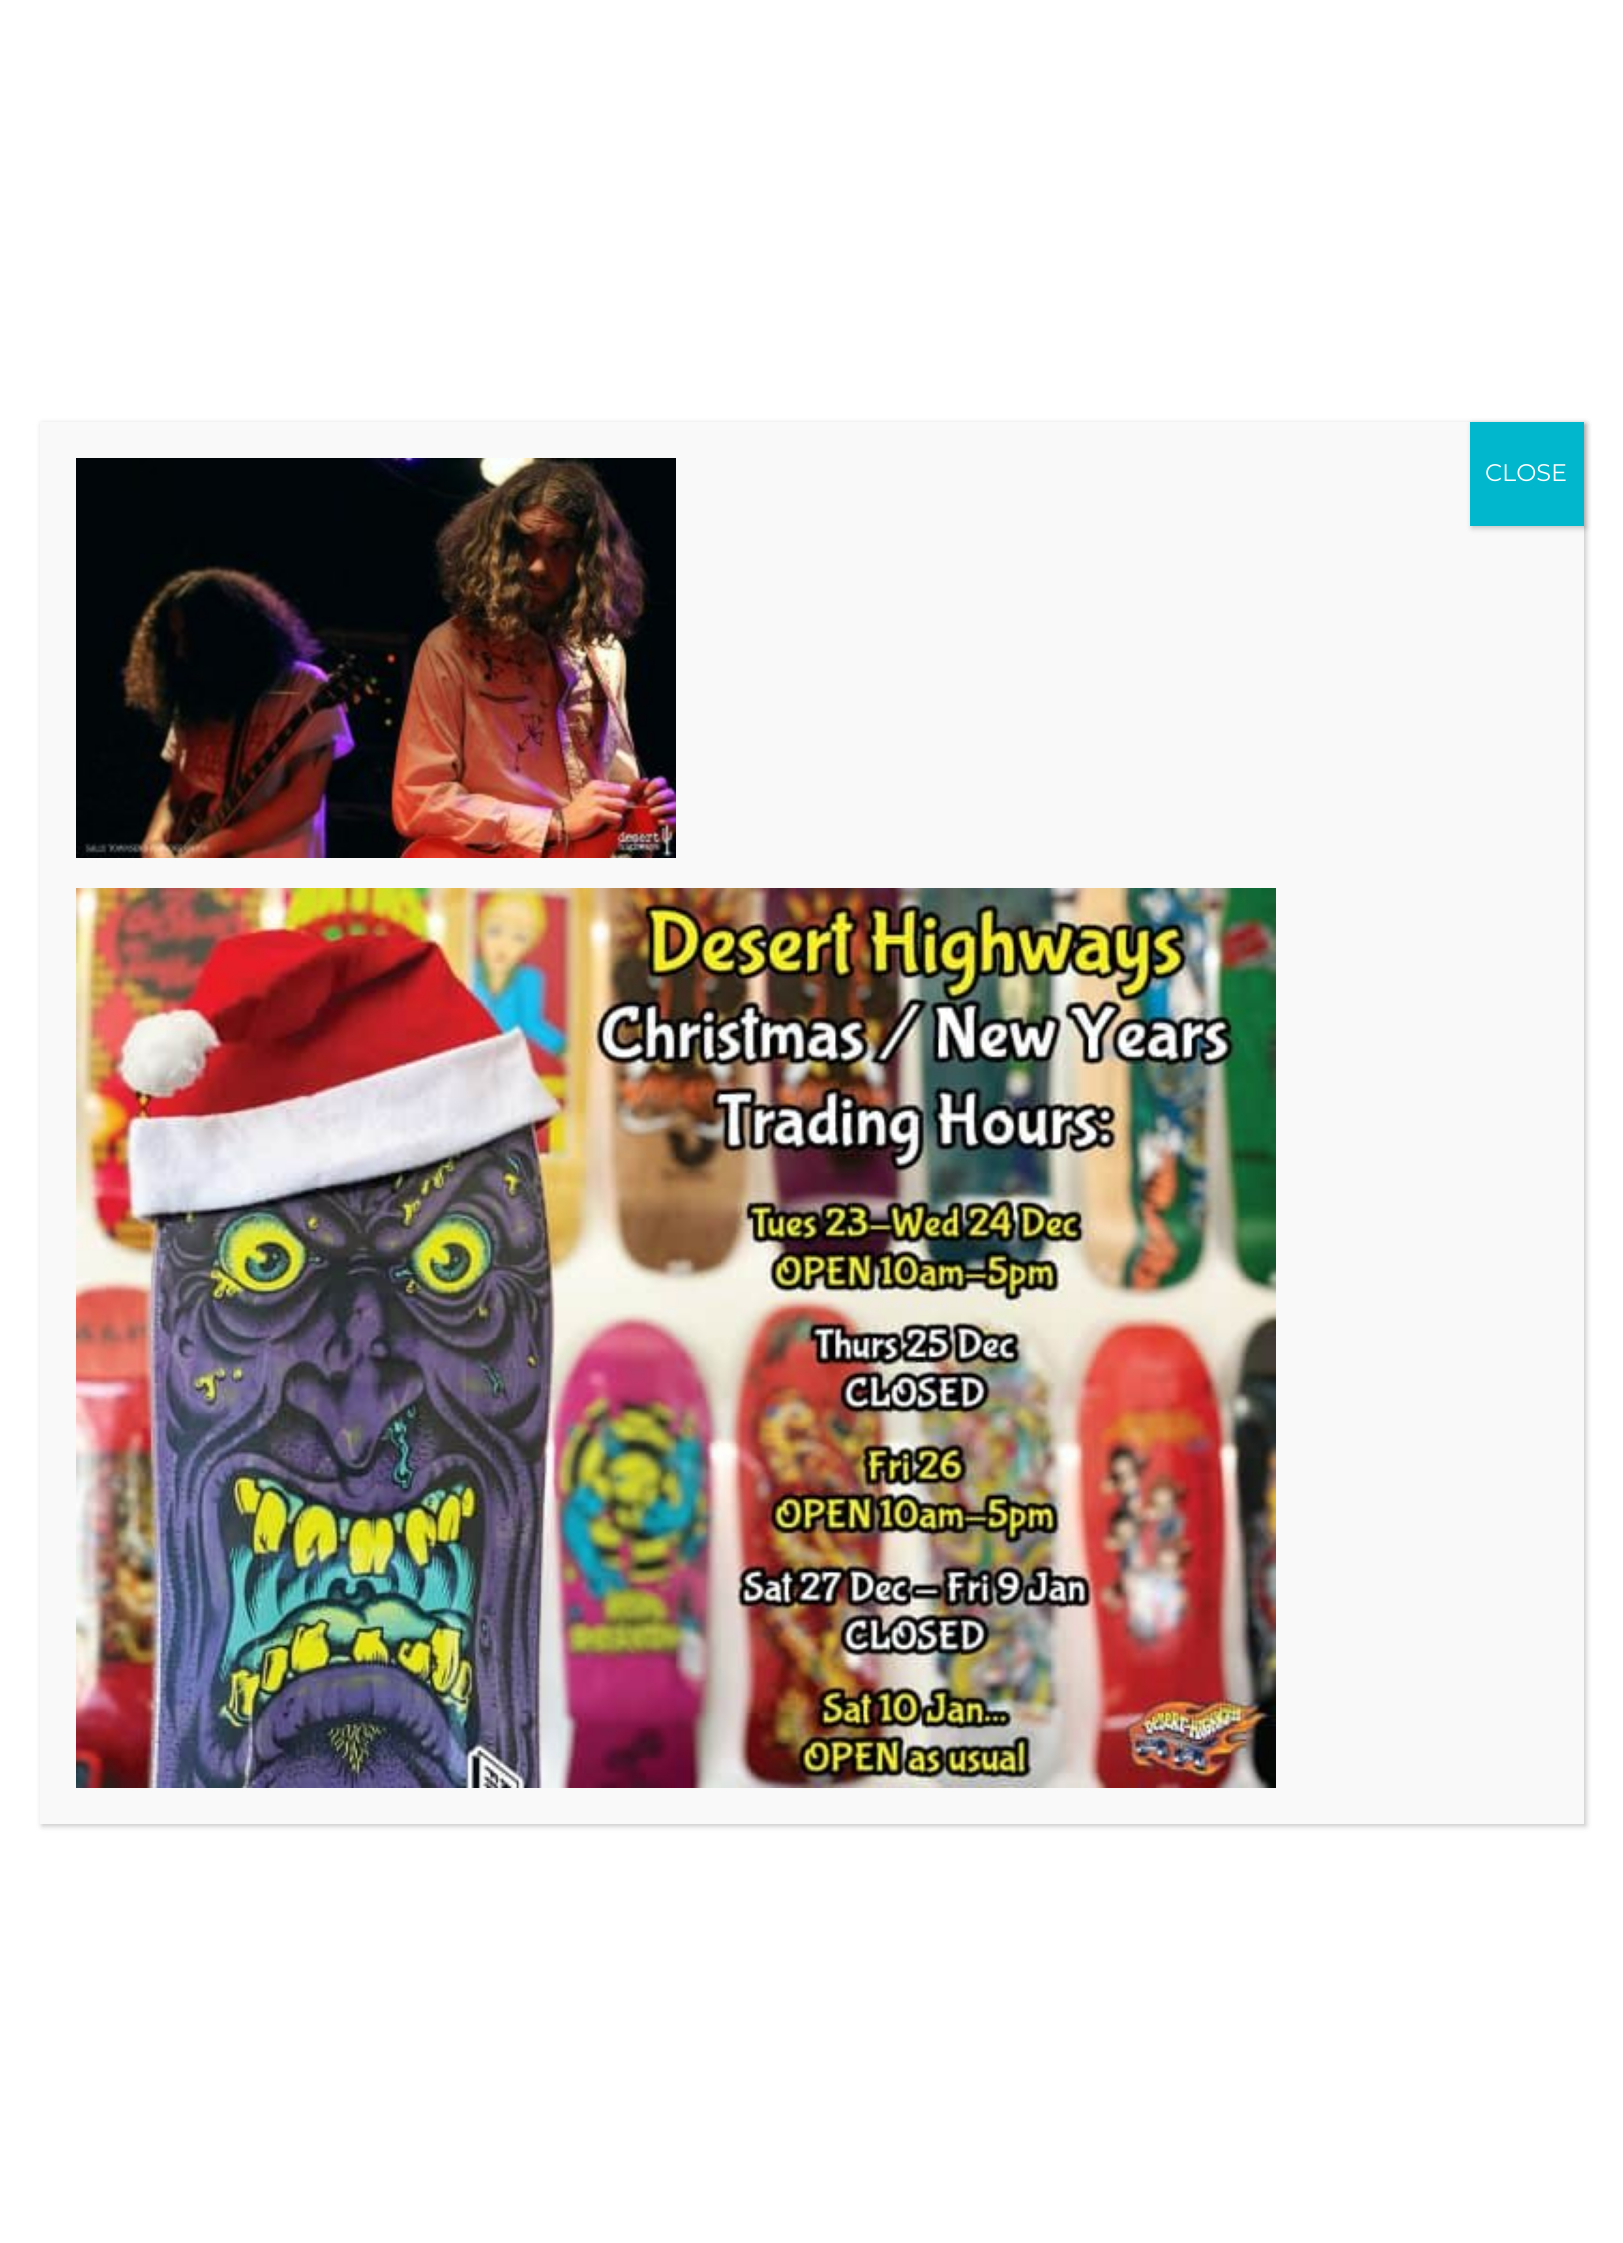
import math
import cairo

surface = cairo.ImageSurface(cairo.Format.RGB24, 1623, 2243)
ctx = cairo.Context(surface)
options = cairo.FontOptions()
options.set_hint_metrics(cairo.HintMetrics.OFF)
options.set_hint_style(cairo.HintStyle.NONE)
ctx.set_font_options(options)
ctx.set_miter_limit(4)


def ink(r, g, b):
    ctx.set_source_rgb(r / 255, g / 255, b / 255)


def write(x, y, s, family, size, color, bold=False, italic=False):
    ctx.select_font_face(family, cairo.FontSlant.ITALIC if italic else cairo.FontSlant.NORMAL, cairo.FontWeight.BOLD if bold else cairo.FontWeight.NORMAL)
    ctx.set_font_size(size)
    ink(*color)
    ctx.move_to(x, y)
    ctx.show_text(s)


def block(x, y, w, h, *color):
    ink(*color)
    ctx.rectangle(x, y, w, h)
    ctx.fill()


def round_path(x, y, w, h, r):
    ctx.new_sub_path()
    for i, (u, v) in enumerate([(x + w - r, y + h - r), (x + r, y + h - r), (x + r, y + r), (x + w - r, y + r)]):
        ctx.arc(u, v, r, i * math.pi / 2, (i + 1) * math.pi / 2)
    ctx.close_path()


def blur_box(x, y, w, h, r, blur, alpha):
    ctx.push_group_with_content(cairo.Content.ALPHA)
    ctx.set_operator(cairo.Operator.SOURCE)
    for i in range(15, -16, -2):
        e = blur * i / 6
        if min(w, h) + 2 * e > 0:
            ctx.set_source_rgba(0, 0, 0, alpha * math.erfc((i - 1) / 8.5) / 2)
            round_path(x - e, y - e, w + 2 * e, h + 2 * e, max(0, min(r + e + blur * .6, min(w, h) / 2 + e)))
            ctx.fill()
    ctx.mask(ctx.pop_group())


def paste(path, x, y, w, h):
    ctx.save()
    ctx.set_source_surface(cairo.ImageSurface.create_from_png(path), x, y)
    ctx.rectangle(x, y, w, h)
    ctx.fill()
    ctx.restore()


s1 = dict(family="Montserrat", size=24, color=(255, 255, 255))

ink(255, 255, 255)
ctx.paint()
ink(2, 2, 2)
blur_box(42, 424, 1544, 1402, 0, 3, 0.23)
block(40, 422, 1544, 1402, 249, 249, 249)
paste("pic1.png", 76, 458, 600, 400)
paste("pic2.png", 76, 888, 1200, 900)
ink(2, 2, 2)
blur_box(1472, 424, 114, 104, 0, 3, 0.23)
block(1470, 422, 114, 104, 0, 183, 205)
write(1485, 481, "CLOSE", **s1)
surface.write_to_png("screenshot.png")
